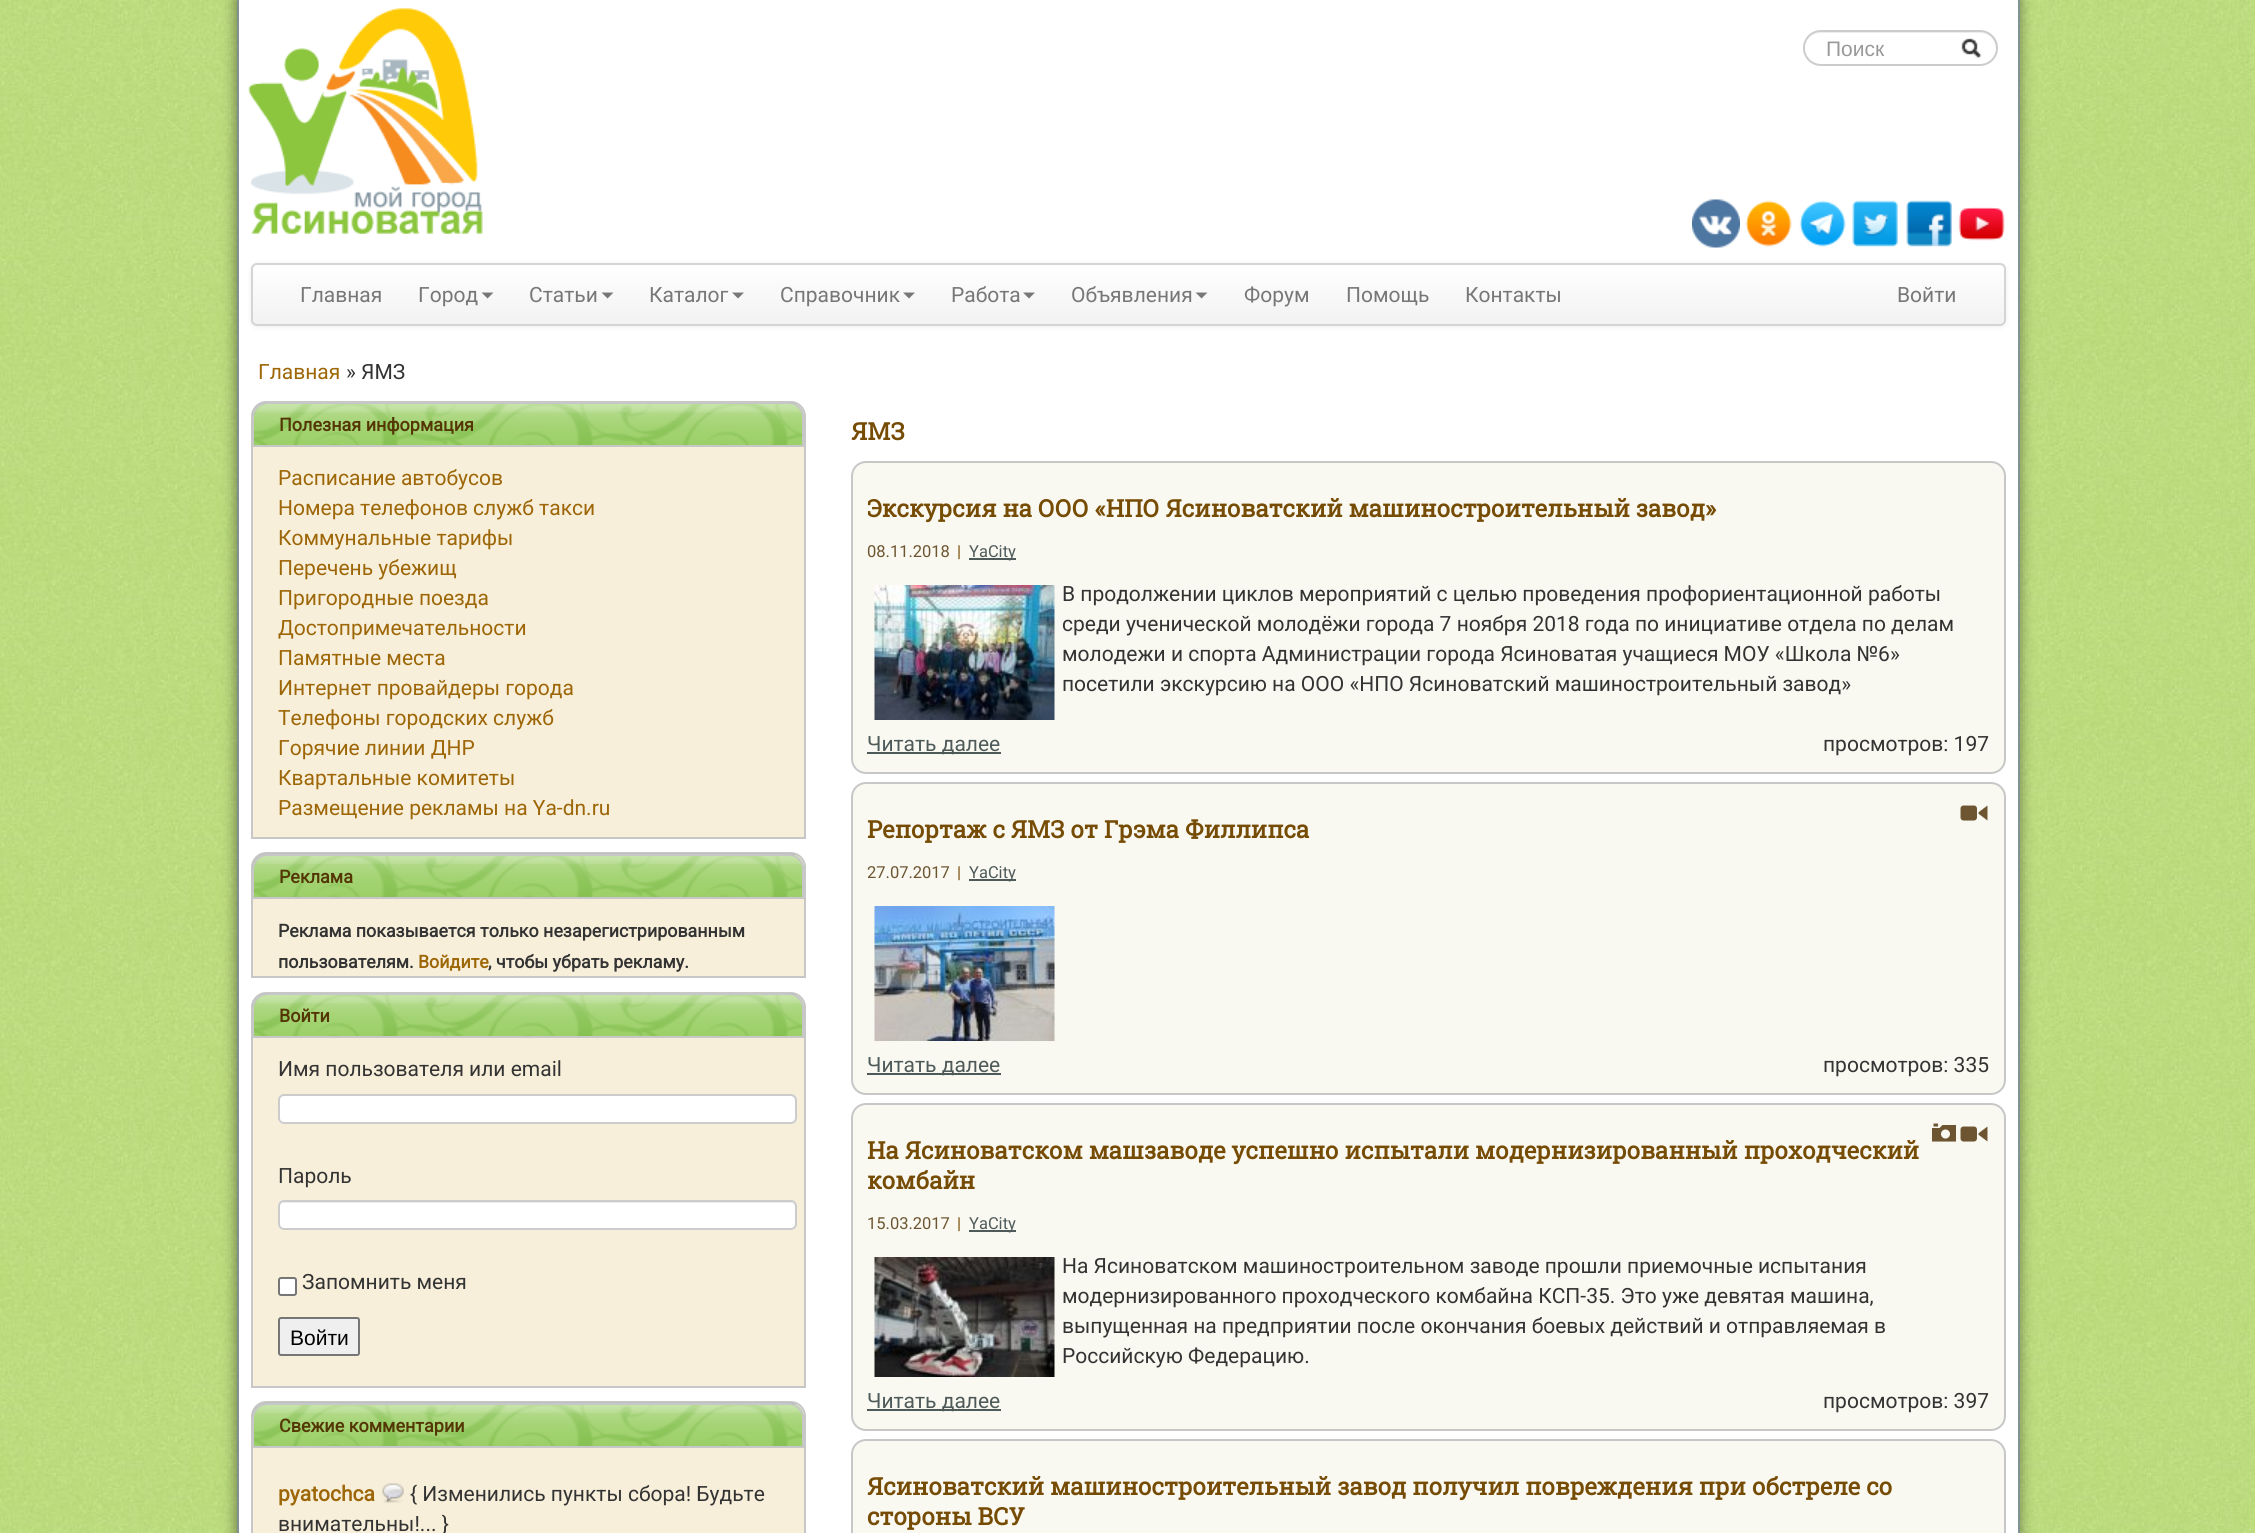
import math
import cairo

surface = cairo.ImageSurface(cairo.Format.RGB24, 2255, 1533)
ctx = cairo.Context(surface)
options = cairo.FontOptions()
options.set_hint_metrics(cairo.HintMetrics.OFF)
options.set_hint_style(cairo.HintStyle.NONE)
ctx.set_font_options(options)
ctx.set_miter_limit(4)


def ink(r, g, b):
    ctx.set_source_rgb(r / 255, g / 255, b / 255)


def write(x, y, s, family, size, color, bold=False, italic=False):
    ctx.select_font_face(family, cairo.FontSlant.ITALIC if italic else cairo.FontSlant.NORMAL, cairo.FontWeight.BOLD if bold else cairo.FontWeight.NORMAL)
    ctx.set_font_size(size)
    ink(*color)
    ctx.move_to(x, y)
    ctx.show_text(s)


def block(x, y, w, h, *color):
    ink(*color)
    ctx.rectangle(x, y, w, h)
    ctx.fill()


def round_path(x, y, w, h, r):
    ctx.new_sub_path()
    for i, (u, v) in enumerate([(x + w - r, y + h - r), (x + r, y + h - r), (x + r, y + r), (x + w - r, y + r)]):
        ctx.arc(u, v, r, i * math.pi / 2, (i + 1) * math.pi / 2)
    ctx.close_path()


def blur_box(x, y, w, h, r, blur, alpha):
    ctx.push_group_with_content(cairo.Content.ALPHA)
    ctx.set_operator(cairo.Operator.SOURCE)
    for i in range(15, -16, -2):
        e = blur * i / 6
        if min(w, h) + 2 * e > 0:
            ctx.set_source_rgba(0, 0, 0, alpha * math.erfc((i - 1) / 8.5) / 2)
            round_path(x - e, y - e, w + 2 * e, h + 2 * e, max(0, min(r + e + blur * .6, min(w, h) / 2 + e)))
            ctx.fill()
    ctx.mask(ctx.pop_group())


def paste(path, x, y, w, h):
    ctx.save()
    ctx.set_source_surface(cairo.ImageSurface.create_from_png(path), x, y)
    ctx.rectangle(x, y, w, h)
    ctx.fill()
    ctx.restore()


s1 = dict(family="Liberation Sans", size=21, color=(153, 153, 153))
s2 = dict(family="Roboto", size=21, color=(119, 119, 119))
s3 = dict(family="Roboto", size=21, color=(157, 102, 7))
s4 = dict(family="Roboto", size=21, color=(51, 51, 51))
s5 = dict(family="Roboto", size=18, color=(83, 54, 3), bold=True)
s6 = dict(family="Roboto", size=17.85, color=(51, 51, 51), bold=True)
s7 = dict(family="Roboto", size=17.85, color=(157, 102, 7), bold=True)
s8 = dict(family="Liberation Sans", size=21, color=(0, 0, 0))
s9 = dict(family="Roboto", size=21, color=(157, 102, 7), bold=True)
s10 = dict(family="Roboto Slab", size=24, color=(118, 76, 5), bold=True)
s11 = dict(family="Roboto", size=16.5, color=(109, 85, 49))
s12 = dict(family="Roboto", size=16.5, color=(118, 76, 5))
s13 = dict(family="Roboto", size=16.5, color=(78, 90, 90))
s14 = dict(family="Roboto", size=21, color=(78, 90, 90))

ink(255, 255, 255)
ctx.paint()
paste("pic1.png", 0, 0, 2255, 1533)
ink(0, 0, 0)
blur_box(237, 0, 1782, 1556, 0, 7.5, 0.5)
block(239, 0, 1779, 1533, 255, 255, 255)
block(2018, 0, 2, 1533, 129, 146, 146)
block(237, 0, 2, 1533, 129, 146, 146)
paste("pic2.png", 248, 8, 235, 226)
ink(236, 236, 236)
ctx.new_path()
ctx.move_to(1821, 33)
ctx.line_to(1980, 33)
ctx.curve_to(1989, 33, 1996, 40, 1996, 50)
ctx.curve_to(1996, 53, 1995, 56, 1994, 58)
ctx.curve_to(1996, 56, 1997, 52, 1997, 48)
ctx.curve_to(1997, 39, 1990, 32, 1980, 32)
ctx.line_to(1822, 32)
ctx.curve_to(1816, 32, 1811, 35, 1808, 39)
ctx.curve_to(1811, 35, 1816, 33, 1821, 33)
ctx.close_path()
ctx.fill()
round_path(1804, 31, 193, 34, 17)
ink(204, 204, 204)
ctx.stroke()
write(1826, 56, "Поиск", **s1)
paste("pic3.png", 1961, 38, 21, 21)
paste("pic4.png", 1692, 199, 48, 49)
paste("pic5.png", 1745, 200, 47, 47)
paste("pic6.png", 1799, 200, 47, 47)
paste("pic7.png", 1852, 200, 46, 47)
paste("pic8.png", 1906, 200, 46, 47)
paste("pic9.png", 1958, 207, 47, 34)
ink(0, 0, 0)
blur_box(251, 264, 1755, 63, 6, 3, 0.07)
ctx.save()
round_path(251, 263, 1755, 63, 6)
ctx.clip()
gradient = cairo.LinearGradient(1128, 264, 1128, 324)
gradient.add_color_stop_rgba(0, 1, 1, 1, 1)
gradient.add_color_stop_rgba(1, 0.949, 0.949, 0.949, 1)
ctx.set_source(gradient)
ctx.rectangle(251, 264, 1755, 60)
ctx.fill()
ctx.restore()
round_path(252, 264, 1753, 61, 5)
ink(212, 212, 212)
ctx.stroke()
write(300, 302, "Главная", **s2)
write(418, 302, "Город", **s2)
ctx.new_path()
ctx.move_to(481.5, 292.5)
ctx.line_to(493.5, 292.5)
ctx.line_to(487.5, 298.5)
ctx.close_path()
ctx.fill()
write(529, 302, "Статьи", **s2)
ctx.new_path()
ctx.move_to(601.5, 292.5)
ctx.line_to(613.5, 292.5)
ctx.line_to(607.5, 298.5)
ctx.close_path()
ctx.fill()
write(649, 302, "Каталог", **s2)
ctx.new_path()
ctx.move_to(732, 292.5)
ctx.line_to(744, 292.5)
ctx.line_to(738, 298.5)
ctx.close_path()
ctx.fill()
write(780, 302, "Справочник", **s2)
ctx.new_path()
ctx.move_to(903, 292.5)
ctx.line_to(915, 292.5)
ctx.line_to(909, 298.5)
ctx.close_path()
ctx.fill()
write(951, 302, "Работа", **s2)
ctx.new_path()
ctx.move_to(1023, 292.5)
ctx.line_to(1035, 292.5)
ctx.line_to(1029, 298.5)
ctx.close_path()
ctx.fill()
write(1071, 302, "Объявления", **s2)
ctx.new_path()
ctx.move_to(1195.5, 292.5)
ctx.line_to(1207.5, 292.5)
ctx.line_to(1201.5, 298.5)
ctx.close_path()
ctx.fill()
write(1244, 302, "Форум", **s2)
write(1346, 302, "Помощь", **s2)
write(1465, 302, "Контакты", **s2)
write(1897, 302, "Войти", **s2)
write(258, 379, "Главная", **s3)
write(346, 379, "» ЯМЗ", **s4)
ink(247, 239, 218)
ctx.new_path()
ctx.move_to(266, 402)
ctx.line_to(791, 402)
ctx.curve_to(798.5, 402, 805, 408.5, 805, 416)
ctx.line_to(805, 838)
ctx.line_to(252, 838)
ctx.line_to(252, 416)
ctx.curve_to(252, 408.5, 258.5, 402, 266, 402)
ctx.close_path()
ctx.fill_preserve()
ink(199, 199, 199)
ctx.stroke()
paste("pic10.png", 252, 402, 552, 43)
ctx.new_path()
ctx.move_to(267, 403)
ctx.line_to(789, 403)
ctx.curve_to(796.5, 403, 803, 409.5, 803, 417)
ctx.line_to(803, 446)
ctx.line_to(253, 446)
ctx.line_to(253, 417)
ctx.curve_to(253, 409.5, 259.5, 403, 267, 403)
ctx.close_path()
ctx.stroke()
write(279, 431, "Полезная информация", **s5)
write(278, 485, "Расписание автобусов", **s3)
write(278, 515, "Номера телефонов служб такси", **s3)
write(278, 545, "Коммунальные тарифы", **s3)
write(278, 575, "Перечень убежищ", **s3)
write(278, 605, "Пригородные поезда", **s3)
write(278, 635, "Достопримечательности", **s3)
write(278, 665, "Памятные места", **s3)
write(278, 695, "Интернет провайдеры города", **s3)
write(278, 725, "Телефоны городских служб", **s3)
write(278, 755, "Горячие линии ДНР", **s3)
write(278, 785, "Квартальные комитеты", **s3)
write(278, 815, "Размещение рекламы на Ya-dn.ru", **s3)
ink(247, 239, 218)
ctx.new_path()
ctx.move_to(266, 853)
ctx.line_to(791, 853)
ctx.curve_to(798.5, 853, 805, 859.5, 805, 867)
ctx.line_to(805, 977)
ctx.line_to(252, 977)
ctx.line_to(252, 867)
ctx.curve_to(252, 859.5, 258.5, 853, 266, 853)
ctx.close_path()
ctx.fill_preserve()
ink(199, 199, 199)
ctx.stroke()
paste("pic11.png", 252, 853, 552, 44)
ctx.new_path()
ctx.move_to(267, 855)
ctx.line_to(789, 855)
ctx.curve_to(796.5, 855, 803, 861.5, 803, 869)
ctx.line_to(803, 898)
ctx.line_to(253, 898)
ctx.line_to(253, 869)
ctx.curve_to(253, 861.5, 259.5, 855, 267, 855)
ctx.close_path()
ctx.stroke()
write(279, 883, "Реклама", **s5)
write(278, 937, "Реклама показывается только незарегистрированным", **s6)
write(278, 968, "пользователям.", **s6)
write(418, 968, "Войдите", **s7)
write(488, 968, ", чтобы убрать рекламу.", **s6)
ink(247, 239, 218)
ctx.new_path()
ctx.move_to(266, 993)
ctx.line_to(791, 993)
ctx.curve_to(798.5, 993, 805, 999.5, 805, 1007)
ctx.line_to(805, 1387)
ctx.line_to(252, 1387)
ctx.line_to(252, 1007)
ctx.curve_to(252, 999.5, 258.5, 993, 266, 993)
ctx.close_path()
ctx.fill_preserve()
ink(199, 199, 199)
ctx.stroke()
paste("pic12.png", 252, 993, 552, 43)
ctx.new_path()
ctx.move_to(267, 994)
ctx.line_to(789, 994)
ctx.curve_to(796.5, 994, 803, 1000.5, 803, 1008)
ctx.line_to(803, 1037)
ctx.line_to(253, 1037)
ctx.line_to(253, 1008)
ctx.curve_to(253, 1000.5, 259.5, 994, 267, 994)
ctx.close_path()
ctx.stroke()
write(279, 1022, "Войти", **s5)
write(278, 1076, "Имя пользователя или email", **s4)
ink(255, 255, 255)
round_path(278, 1094, 519, 30, 6)
ctx.fill()
ink(236, 236, 236)
ctx.new_path()
ctx.move_to(284, 1096)
ctx.line_to(790, 1096)
ctx.curve_to(793, 1096, 795, 1099, 795, 1101)
ctx.line_to(795, 1100)
ctx.curve_to(795, 1097, 793, 1095, 790, 1095)
ctx.line_to(284, 1095)
ctx.curve_to(281, 1095, 279, 1097, 279, 1100)
ctx.line_to(279, 1101)
ctx.curve_to(279, 1099, 281, 1096, 284, 1096)
ctx.close_path()
ctx.fill()
round_path(279, 1095, 517, 28, 5)
ink(204, 204, 204)
ctx.stroke()
write(278, 1183, "Пароль", **s4)
ink(255, 255, 255)
round_path(278, 1200, 519, 30, 6)
ctx.fill()
ink(236, 236, 236)
ctx.new_path()
ctx.move_to(284, 1203)
ctx.line_to(790, 1203)
ctx.curve_to(793, 1203, 795, 1205, 795, 1208)
ctx.line_to(795, 1207)
ctx.curve_to(795, 1204, 793, 1202, 790, 1202)
ctx.line_to(284, 1202)
ctx.curve_to(281, 1202, 279, 1204, 279, 1207)
ctx.line_to(279, 1208)
ctx.curve_to(279, 1205, 281, 1203, 284, 1203)
ctx.close_path()
ctx.fill()
round_path(279, 1201, 517, 28, 5)
ink(204, 204, 204)
ctx.stroke()
ink(255, 255, 255)
round_path(279, 1278, 17, 17, 2)
ctx.fill_preserve()
ink(118, 118, 118)
ctx.stroke()
write(302, 1289, "Запомнить меня", **s4)
ink(239, 239, 239)
round_path(279, 1318, 80, 37, 2)
ctx.fill_preserve()
ink(118, 118, 118)
ctx.stroke()
write(290, 1345, "Войти", **s8)
ink(247, 239, 218)
ctx.new_path()
ctx.move_to(266, 1402)
ctx.line_to(791, 1402)
ctx.curve_to(798.5, 1402, 805, 1408.5, 805, 1416)
ctx.line_to(805, 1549)
ctx.line_to(252, 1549)
ctx.line_to(252, 1416)
ctx.curve_to(252, 1408.5, 258.5, 1402, 266, 1402)
ctx.close_path()
ctx.fill_preserve()
ink(199, 199, 199)
ctx.stroke()
paste("pic13.png", 252, 1402, 552, 44)
ctx.new_path()
ctx.move_to(267, 1404)
ctx.line_to(789, 1404)
ctx.curve_to(796.5, 1404, 803, 1410.5, 803, 1418)
ctx.line_to(803, 1447)
ctx.line_to(253, 1447)
ctx.line_to(253, 1418)
ctx.curve_to(253, 1410.5, 259.5, 1404, 267, 1404)
ctx.close_path()
ctx.stroke()
write(279, 1432, "Свежие комментарии", **s5)
write(278, 1501, "pyatochca", **s9)
paste("pic14.png", 382, 1483, 22, 20)
write(410, 1501, "{ Изменились пункты сбора! Будьте", **s4)
write(278, 1531, "внимательны!... }", **s4)
write(851, 440, "ЯМЗ", **s10)
ink(249, 249, 241)
round_path(852, 462, 1153, 311, 14)
ctx.fill_preserve()
ink(199, 199, 199)
ctx.stroke()
write(867, 517, "Экскурсия на ООО «НПО Ясиноватский машиностроительный завод»", **s10)
write(867, 557, "08.11.2018", **s11)
write(957, 557, "|", **s12)
block(969, 558, 47, 2, 78, 90, 90)
write(969, 557, "YaCity", **s13)
paste("pic15.png", 874, 585, 181, 135)
write(1062, 601, "В продолжении циклов мероприятий с целью проведения профориентационной работы", **s4)
write(1062, 631, "среди ученической молодёжи города 7 ноября 2018 года по инициативе отдела по делам", **s4)
write(1062, 661, "молодежи и спорта Администрации города Ясиноватая учащиеся МОУ «Школа №6»", **s4)
write(1062, 691, "посетили экскурсию на ООО «НПО Ясиноватский машиностроительный завод»", **s4)
block(867, 752, 134, 2, 78, 90, 90)
write(867, 751, "Читать далее", **s14)
write(1823, 751, "просмотров: 197", **s4)
ink(249, 249, 241)
round_path(852, 783, 1153, 311, 14)
ctx.fill_preserve()
ink(199, 199, 199)
ctx.stroke()
paste("pic16.png", 1960, 805, 28, 16)
write(867, 838, "Репортаж с ЯМЗ от Грэма Филлипса", **s10)
write(867, 878, "27.07.2017", **s11)
write(957, 878, "|", **s12)
block(969, 879, 47, 2, 78, 90, 90)
write(969, 878, "YaCity", **s13)
paste("pic17.png", 874, 906, 181, 135)
block(867, 1073, 134, 2, 78, 90, 90)
write(867, 1072, "Читать далее", **s14)
write(1823, 1072, "просмотров: 335", **s4)
ink(249, 249, 241)
round_path(852, 1104, 1153, 326, 14)
ctx.fill_preserve()
ink(199, 199, 199)
ctx.stroke()
paste("pic18.png", 1932, 1123, 24, 19)
paste("pic16.png", 1960, 1126, 28, 16)
write(867, 1159, "На Ясиноватском машзаводе успешно испытали модернизированный проходческий", **s10)
write(867, 1189, "комбайн", **s10)
write(867, 1229, "15.03.2017", **s11)
write(957, 1229, "|", **s12)
block(969, 1230, 47, 2, 78, 90, 90)
write(969, 1229, "YaCity", **s13)
paste("pic19.png", 874, 1257, 181, 120)
write(1062, 1273, "На Ясиноватском машиностроительном заводе прошли приемочные испытания", **s4)
write(1062, 1303, "модернизированного проходческого комбайна КСП-35. Это уже девятая машина,", **s4)
write(1062, 1333, "выпущенная на предприятии после окончания боевых действий и отправляемая в", **s4)
write(1062, 1363, "Российскую Федерацию.", **s4)
block(867, 1409, 134, 2, 78, 90, 90)
write(867, 1408, "Читать далее", **s14)
write(1823, 1408, "просмотров: 397", **s4)
ink(249, 249, 241)
round_path(852, 1440, 1153, 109, 14)
ctx.fill_preserve()
ink(199, 199, 199)
ctx.stroke()
write(867, 1495, "Ясиноватский машиностроительный завод получил повреждения при обстреле со", **s10)
write(867, 1525, "стороны ВСУ", **s10)
surface.write_to_png("screenshot.png")
